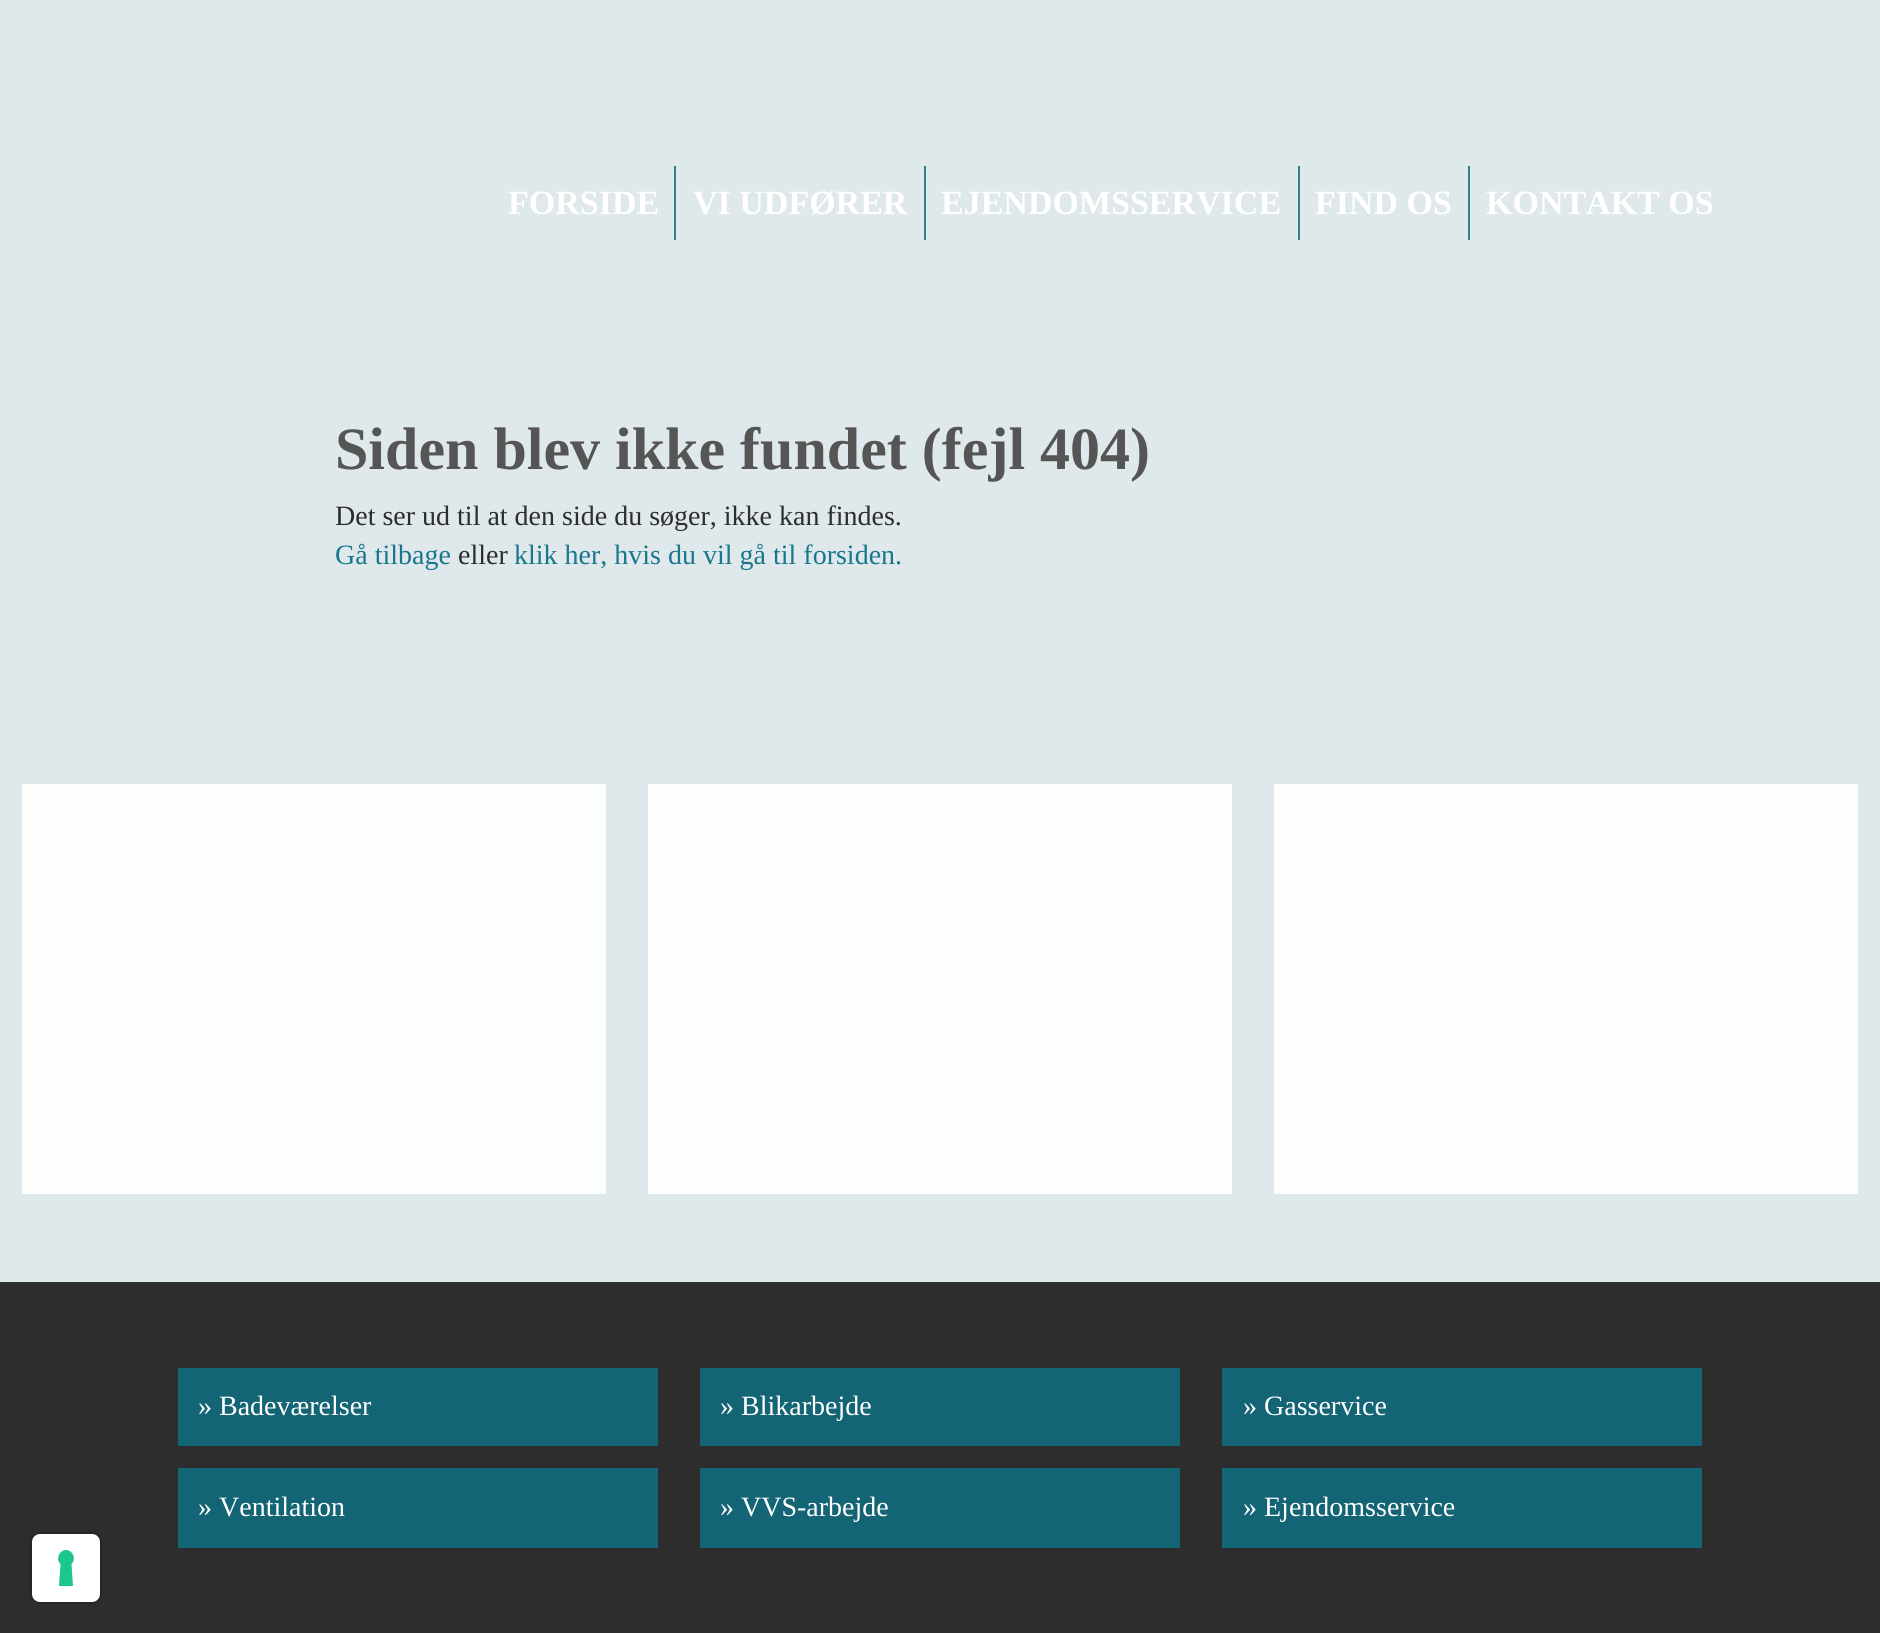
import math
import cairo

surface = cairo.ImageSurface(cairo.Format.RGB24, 1880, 1633)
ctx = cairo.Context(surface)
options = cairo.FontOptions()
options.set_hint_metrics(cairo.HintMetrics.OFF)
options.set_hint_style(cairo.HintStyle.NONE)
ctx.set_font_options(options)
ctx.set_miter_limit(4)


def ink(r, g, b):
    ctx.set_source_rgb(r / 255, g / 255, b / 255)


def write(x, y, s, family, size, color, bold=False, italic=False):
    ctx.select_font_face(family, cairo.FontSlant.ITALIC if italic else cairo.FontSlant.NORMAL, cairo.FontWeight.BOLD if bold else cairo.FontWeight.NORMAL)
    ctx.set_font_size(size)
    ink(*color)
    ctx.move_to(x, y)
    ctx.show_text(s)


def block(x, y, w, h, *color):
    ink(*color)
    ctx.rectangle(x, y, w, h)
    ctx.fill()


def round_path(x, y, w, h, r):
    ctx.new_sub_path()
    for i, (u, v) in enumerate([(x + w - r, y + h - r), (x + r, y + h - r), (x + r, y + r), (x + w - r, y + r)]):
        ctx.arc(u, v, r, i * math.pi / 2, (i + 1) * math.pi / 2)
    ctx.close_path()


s1 = dict(family="Liberation Serif", size=34, color=(255, 255, 255), bold=True)
s2 = dict(family="Liberation Serif", size=60, color=(85, 85, 85), bold=True)
s3 = dict(family="Liberation Serif", size=28, color=(45, 45, 45))
s4 = dict(family="Liberation Serif", size=28, color=(25, 119, 141))
s5 = dict(family="Liberation Serif", size=28, color=(255, 255, 255))

ink(223, 232, 234)
ctx.paint()
block(674, 166, 2, 74, 54, 127, 132)
write(508, 214, "FORSIDE", **s1)
block(924, 166, 2, 74, 54, 127, 132)
write(693, 214, "VI UDFØRER", **s1)
block(1298, 166, 2, 74, 54, 127, 132)
write(941, 214, "EJENDOMSSERVICE", **s1)
block(1468, 166, 2, 74, 54, 127, 132)
write(1315, 214, "FIND OS", **s1)
write(1486, 214, "KONTAKT OS", **s1)
write(335, 469, "Siden blev ikke fundet (fejl 404)", **s2)
write(335, 525, "Det ser ud til at den side du søger, ikke kan findes.", **s3)
write(335, 564, "Gå tilbage", **s4)
write(458, 564, "eller", **s3)
write(514, 564, "klik her, hvis du vil gå til forsiden.", **s4)
block(22, 784, 584, 410, 252, 253, 253)
block(648, 784, 584, 410, 252, 253, 253)
block(1274, 784, 584, 410, 252, 253, 253)
block(0, 1282, 1880, 351, 45, 45, 45)
block(178, 1368, 480, 78, 19, 100, 116)
write(198, 1415, "» Badeværelser", **s5)
block(700, 1368, 480, 78, 19, 100, 116)
write(720, 1415, "» Blikarbejde", **s5)
block(1222, 1368, 480, 78, 19, 100, 116)
write(1243, 1415, "» Gasservice", **s5)
block(178, 1468, 480, 80, 19, 100, 116)
write(198, 1516, "» Ventilation", **s5)
block(700, 1468, 480, 80, 19, 100, 116)
write(720, 1516, "» VVS-arbejde", **s5)
block(1222, 1468, 480, 80, 19, 100, 116)
write(1243, 1516, "» Ejendomsservice", **s5)
round_path(31, 1533, 70, 70, 9)
ink(38, 38, 38)
ctx.stroke()
ink(255, 255, 255)
round_path(32, 1534, 68, 68, 8)
ctx.fill()
ink(28, 198, 145)
ctx.set_fill_rule(cairo.FillRule.EVEN_ODD)
ctx.new_path()
ctx.move_to(66, 1550)
ctx.curve_to(73, 1550, 76.5, 1559.5, 71.5, 1564)
ctx.line_to(73, 1586)
ctx.line_to(59, 1586)
ctx.line_to(60.5, 1564)
ctx.curve_to(55.5, 1559.5, 59, 1550, 66, 1550)
ctx.close_path()
ctx.fill()
surface.write_to_png("screenshot.png")
